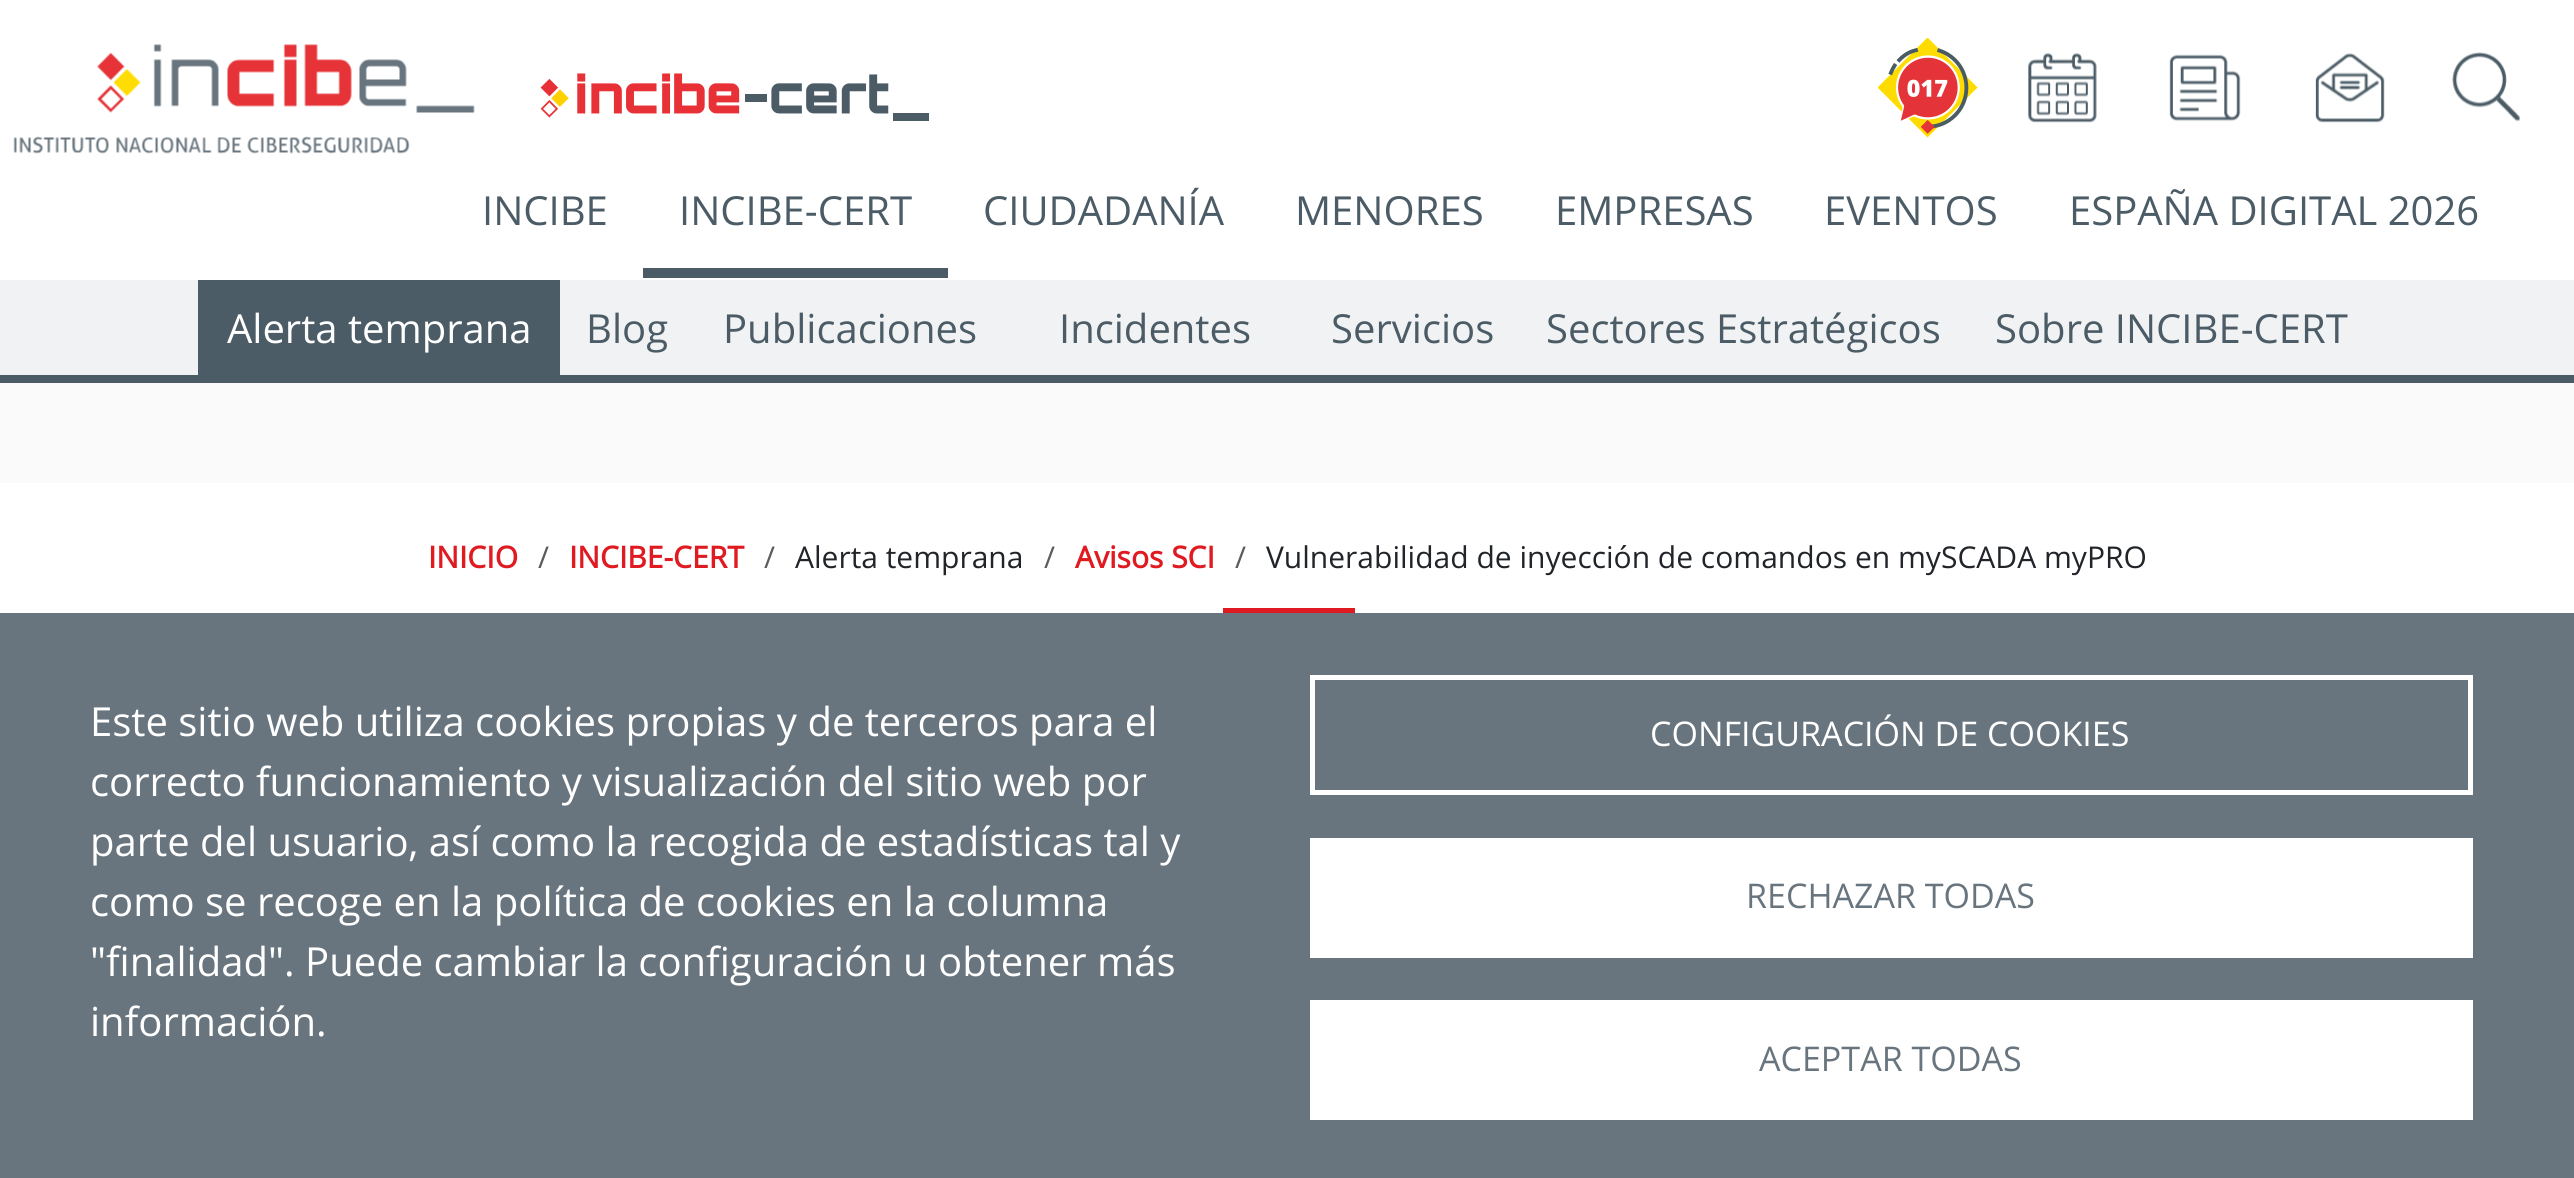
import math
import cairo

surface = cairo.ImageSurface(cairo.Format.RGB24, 2574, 1178)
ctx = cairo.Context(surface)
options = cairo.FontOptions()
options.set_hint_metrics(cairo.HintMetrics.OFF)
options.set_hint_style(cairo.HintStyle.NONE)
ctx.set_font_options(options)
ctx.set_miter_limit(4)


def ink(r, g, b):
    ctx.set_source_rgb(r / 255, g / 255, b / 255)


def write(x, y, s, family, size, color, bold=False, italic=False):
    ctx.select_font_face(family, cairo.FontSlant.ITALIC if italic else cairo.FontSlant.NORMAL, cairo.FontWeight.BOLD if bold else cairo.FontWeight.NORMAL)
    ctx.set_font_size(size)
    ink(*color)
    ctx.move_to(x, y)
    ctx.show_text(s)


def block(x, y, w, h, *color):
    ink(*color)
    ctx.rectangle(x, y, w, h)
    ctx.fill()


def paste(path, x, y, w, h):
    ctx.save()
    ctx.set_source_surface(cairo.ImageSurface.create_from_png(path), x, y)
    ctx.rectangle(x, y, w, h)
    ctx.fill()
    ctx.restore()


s1 = dict(family="Open Sans", size=40, color=(75, 92, 102))
s2 = dict(family="Open Sans", size=40, color=(255, 255, 255))
s3 = dict(family="Open Sans", size=30, color=(223, 26, 33), bold=True)
s4 = dict(family="Open Sans", size=30, color=(89, 92, 95))
s5 = dict(family="Open Sans", size=30, color=(33, 37, 41))
s6 = dict(family="Open Sans", size=34, color=(255, 255, 255))
s7 = dict(family="Open Sans", size=34, color=(104, 117, 126))

ink(250, 250, 250)
ctx.paint()
block(0, 0, 2574, 280, 255, 255, 255)
paste("pic1.png", 13, 44, 462, 110)
paste("pic2.png", 540, 73, 389, 48)
paste("pic3.png", 1878, 38, 100, 100)
paste("pic4.png", 2028, 52, 69, 71)
paste("pic5.png", 2169, 54, 72, 68)
paste("pic6.png", 2315, 53, 70, 70)
paste("pic7.png", 2452, 52, 68, 70)
write(983, 225, "CIUDADANÍA", **s1)
write(2069, 225, "ESPAÑA DIGITAL 2026", **s1)
block(643, 268, 305, 10, 75, 92, 102)
write(679, 225, "INCIBE-CERT", **s1)
block(0, 280, 2574, 95, 241, 242, 243)
block(0, 375, 2574, 8, 75, 92, 102)
block(198, 280, 362, 95, 75, 92, 102)
write(227, 343, "Alerta temprana", **s2)
write(586, 343, "Blog", **s1)
write(723, 343, "Publicaciones", **s1)
write(1059, 343, "Incidentes", **s1)
write(1331, 343, "Servicios", **s1)
write(1546, 343, "Sectores Estratégicos", **s1)
write(1995, 343, "Sobre INCIBE-CERT", **s1)
write(482, 225, "INCIBE", **s1)
write(1295, 225, "MENORES", **s1)
write(1555, 225, "EMPRESAS", **s1)
write(1824, 225, "EVENTOS", **s1)
block(0, 483, 2574, 130, 255, 255, 255)
write(428, 568, "INICIO", **s3)
write(538, 568, "/", **s4)
write(569, 568, "INCIBE-CERT", **s3)
write(764, 568, "/", **s4)
write(795, 568, "Alerta temprana", **s5)
write(1044, 568, "/", **s4)
write(1075, 568, "Avisos SCI", **s3)
write(1235, 568, "/", **s4)
write(1266, 568, "Vulnerabilidad de inyección de comandos en mySCADA myPRO", **s5)
block(1223, 608, 132, 5, 223, 26, 33)
block(0, 613, 2574, 565, 104, 117, 126)
write(90, 736, "Este sitio web utiliza cookies propias y de terceros para el", **s2)
write(90, 796, "correcto funcionamiento y visualización del sitio web por", **s2)
write(90, 856, "parte del usuario, así como la recogida de estadísticas tal y", **s2)
write(90, 916, "como se recoge en la política de cookies en la columna", **s2)
write(90, 976, "\"finalidad\". Puede cambiar la configuración u obtener más", **s2)
write(90, 1036, "información.", **s2)
ctx.rectangle(1312.5, 677.5, 1158, 115)
ctx.set_line_width(5)
ctx.stroke()
write(1650, 746, "CONFIGURACIÓN DE COOKIES", **s6)
block(1310, 838, 1163, 120, 255, 255, 255)
write(1746, 908, "RECHAZAR TODAS", **s7)
block(1310, 1000, 1163, 120, 255, 255, 255)
write(1759, 1071, "ACEPTAR TODAS", **s7)
surface.write_to_png("screenshot.png")
